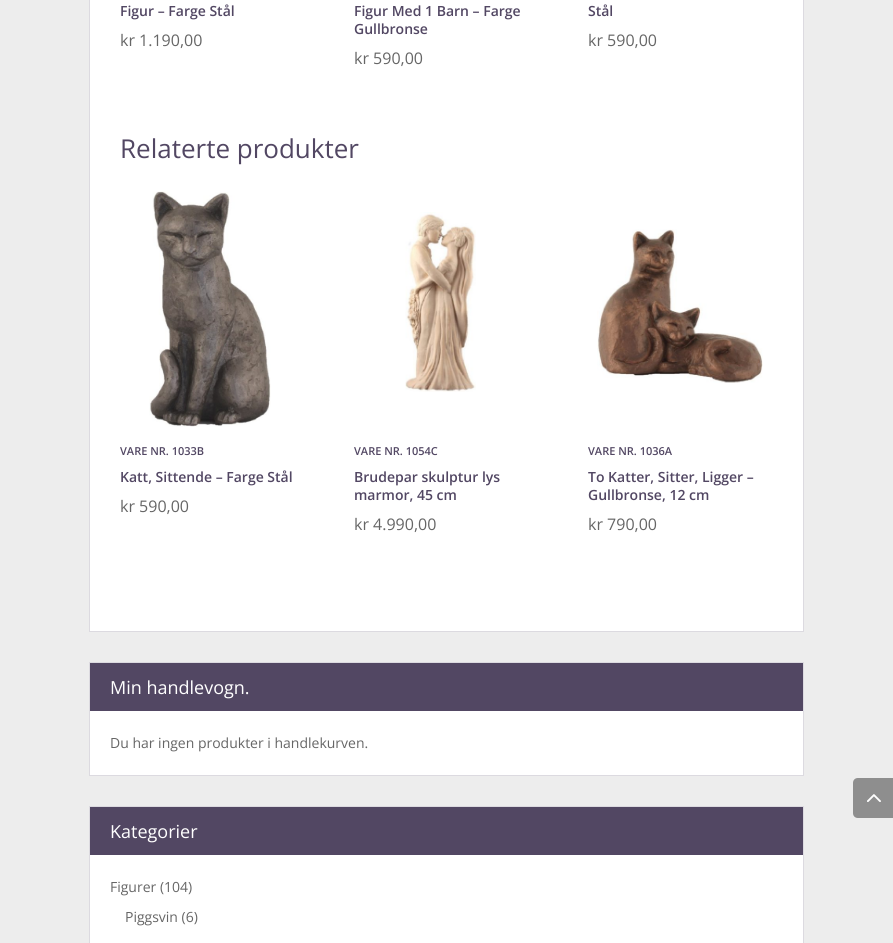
import math
import cairo

surface = cairo.ImageSurface(cairo.Format.RGB24, 893, 943)
ctx = cairo.Context(surface)
options = cairo.FontOptions()
options.set_hint_metrics(cairo.HintMetrics.OFF)
options.set_hint_style(cairo.HintStyle.NONE)
ctx.set_font_options(options)
ctx.set_miter_limit(4)


def ink(r, g, b):
    ctx.set_source_rgb(r / 255, g / 255, b / 255)


def write(x, y, s, family, size, color, bold=False, italic=False):
    ctx.select_font_face(family, cairo.FontSlant.ITALIC if italic else cairo.FontSlant.NORMAL, cairo.FontWeight.BOLD if bold else cairo.FontWeight.NORMAL)
    ctx.set_font_size(size)
    ink(*color)
    ctx.move_to(x, y)
    ctx.show_text(s)


def block(x, y, w, h, *color):
    ink(*color)
    ctx.rectangle(x, y, w, h)
    ctx.fill()


def paste(path, x, y, w, h):
    ctx.save()
    ctx.set_source_surface(cairo.ImageSurface.create_from_png(path), x, y)
    ctx.rectangle(x, y, w, h)
    ctx.fill()
    ctx.restore()


s1 = dict(family="Open Sans SemiBold", size=14, color=(82, 71, 99))
s2 = dict(family="Open Sans", size=16, color=(102, 102, 102))
s3 = dict(family="Open Sans", size=26, color=(82, 71, 99))
s4 = dict(family="Open Sans SemiBold", size=11, color=(82, 71, 99))
s5 = dict(family="Open Sans", size=18, color=(255, 255, 255))
s6 = dict(family="Open Sans", size=14, color=(102, 102, 102))

ink(237, 237, 237)
ctx.paint()
ink(255, 255, 255)
ctx.rectangle(89.5, -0.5, 714, 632)
ctx.fill_preserve()
ink(220, 218, 224)
ctx.set_line_width(1)
ctx.stroke()
write(120, 16, "Figur – Farge Stål", **s1)
write(120, 46, "kr 1.190,00", **s2)
write(354, 16, "Figur Med 1 Barn – Farge", **s1)
write(354, 34, "Gullbronse", **s1)
write(354, 64, "kr 590,00", **s2)
write(588, 16, "Stål", **s1)
write(588, 46, "kr 590,00", **s2)
write(120, 158, "Relaterte produkter", **s3)
paste("pic1.png", 149, 191, 122, 236)
write(120, 455, "VARE NR. 1033B", **s4)
write(120, 482, "Katt, Sittende – Farge Stål", **s1)
write(120, 512, "kr 590,00", **s2)
paste("pic2.png", 405, 212, 71, 180)
write(354, 455, "VARE NR. 1054C", **s4)
write(354, 482, "Brudepar skulptur lys", **s1)
write(354, 500, "marmor, 45 cm", **s1)
write(354, 530, "kr 4.990,00", **s2)
paste("pic3.png", 597, 229, 166, 154)
write(588, 455, "VARE NR. 1036A", **s4)
write(588, 482, "To Katter, Sitter, Ligger –", **s1)
write(588, 500, "Gullbronse, 12 cm", **s1)
write(588, 530, "kr 790,00", **s2)
block(90, 711, 713, 64, 255, 255, 255)
ctx.rectangle(89.5, 662.5, 714, 113)
ink(220, 218, 224)
ctx.stroke()
block(90, 663, 713, 48, 82, 71, 99)
write(110, 694, "Min handlevogn.", **s5)
write(110, 748, "Du har ingen produkter i handlekurven.", **s6)
block(90, 855, 713, 88, 255, 255, 255)
ctx.rectangle(89.5, 806.5, 714, 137)
ink(220, 218, 224)
ctx.stroke()
block(90, 807, 713, 48, 82, 71, 99)
write(110, 838, "Kategorier", **s5)
write(110, 892, "Figurer (104)", **s6)
write(125, 922, "Piggsvin (6)", **s6)
ink(142, 142, 142)
ctx.new_path()
ctx.move_to(858, 778)
ctx.line_to(893, 778)
ctx.line_to(893, 818)
ctx.line_to(858, 818)
ctx.curve_to(855, 818, 853, 816, 853, 813)
ctx.line_to(853, 783)
ctx.curve_to(853, 780, 855, 778, 858, 778)
ctx.close_path()
ctx.fill()
paste("pic4.png", 867, 794, 14, 8)
surface.write_to_png("screenshot.png")
